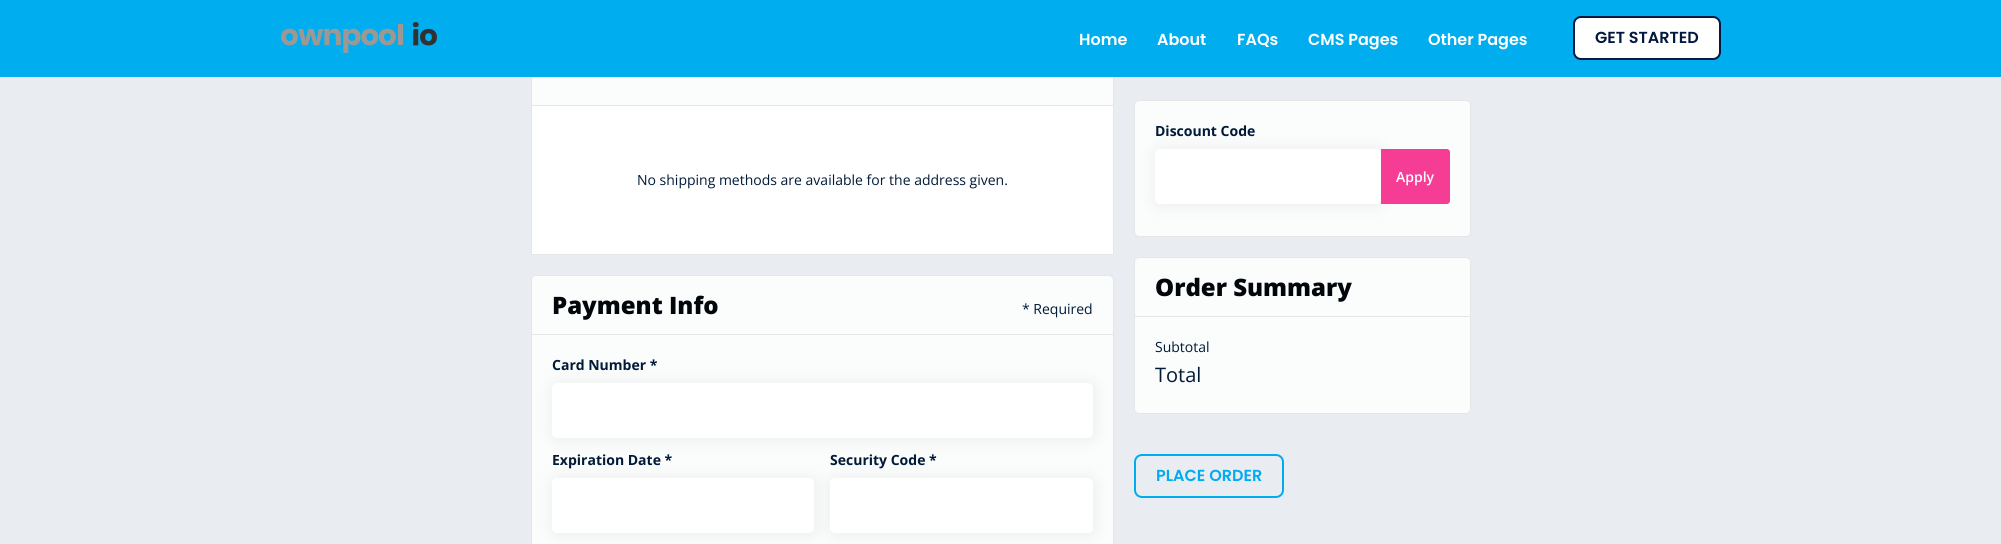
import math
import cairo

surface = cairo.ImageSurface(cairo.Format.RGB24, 2001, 544)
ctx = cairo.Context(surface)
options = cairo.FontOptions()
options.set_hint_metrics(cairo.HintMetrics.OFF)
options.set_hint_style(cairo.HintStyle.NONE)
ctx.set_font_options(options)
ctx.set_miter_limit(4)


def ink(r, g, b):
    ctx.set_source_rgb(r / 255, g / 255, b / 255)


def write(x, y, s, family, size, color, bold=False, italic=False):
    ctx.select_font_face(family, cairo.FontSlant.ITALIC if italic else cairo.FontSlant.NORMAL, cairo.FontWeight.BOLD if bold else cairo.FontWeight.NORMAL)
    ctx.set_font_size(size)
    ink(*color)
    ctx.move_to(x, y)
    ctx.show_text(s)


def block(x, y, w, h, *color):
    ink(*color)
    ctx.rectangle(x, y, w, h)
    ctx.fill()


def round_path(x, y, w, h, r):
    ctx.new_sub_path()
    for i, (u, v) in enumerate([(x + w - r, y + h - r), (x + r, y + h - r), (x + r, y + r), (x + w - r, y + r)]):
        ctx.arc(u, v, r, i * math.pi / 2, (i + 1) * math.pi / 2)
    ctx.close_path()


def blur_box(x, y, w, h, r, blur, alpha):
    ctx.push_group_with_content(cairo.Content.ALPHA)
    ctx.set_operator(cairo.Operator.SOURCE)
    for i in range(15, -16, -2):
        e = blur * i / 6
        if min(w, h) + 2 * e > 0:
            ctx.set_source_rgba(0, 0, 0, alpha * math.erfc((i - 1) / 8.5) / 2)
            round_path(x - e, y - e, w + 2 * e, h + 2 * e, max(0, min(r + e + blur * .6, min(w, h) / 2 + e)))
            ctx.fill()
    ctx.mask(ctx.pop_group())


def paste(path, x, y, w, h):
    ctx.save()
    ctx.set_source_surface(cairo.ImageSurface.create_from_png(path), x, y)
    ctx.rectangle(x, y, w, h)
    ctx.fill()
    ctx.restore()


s1 = dict(family="Poppins SemiBold", size=16, color=(255, 255, 255))
s2 = dict(family="Poppins SemiBold", size=16, color=(4, 25, 63))
s3 = dict(family="Open Sans", size=14, color=(0, 26, 56))
s4 = dict(family="Open Sans ExtraBold", size=24, color=(1, 6, 11))
s5 = dict(family="Open Sans", size=14, color=(0, 26, 56), bold=True)
s6 = dict(family="Open Sans SemiBold", size=14, color=(255, 255, 255))
s7 = dict(family="Open Sans", size=20, color=(0, 26, 56))
s8 = dict(family="Poppins SemiBold", size=16, color=(0, 172, 239))

ink(233, 237, 242)
ctx.paint()
block(532, 77, 581, 28, 251, 252, 252)
ctx.rectangle(531.5, 46.5, 582, 59)
ink(230, 230, 230)
ctx.set_line_width(1)
ctx.stroke()
block(0, 0, 2001, 77, 0, 173, 239)
paste("pic1.png", 281, 22, 156, 31)
write(1079, 45, "Home", **s1)
write(1157, 45, "About", **s1)
write(1237, 45, "FAQs", **s1)
write(1308, 45, "CMS Pages", **s1)
write(1428, 45, "Other Pages", **s1)
round_path(1574, 17, 146, 42, 7)
ctx.fill_preserve()
ink(4, 25, 63)
ctx.set_line_width(2)
ctx.stroke()
write(1595, 43, "GET STARTED", **s2)
block(532, 106, 581, 148, 255, 255, 255)
block(1113, 106, 1, 149, 230, 230, 230)
block(531, 254, 583, 1, 230, 230, 230)
block(531, 106, 1, 149, 230, 230, 230)
write(637, 185, "No shipping methods are available for the address given.", **s3)
ink(251, 252, 252)
ctx.new_path()
ctx.move_to(536, 275.5)
ctx.line_to(1109, 275.5)
ctx.curve_to(1111.5, 275.5, 1113.5, 277.5, 1113.5, 280)
ctx.line_to(1113.5, 334.5)
ctx.line_to(531.5, 334.5)
ctx.line_to(531.5, 280)
ctx.curve_to(531.5, 277.5, 533.5, 275.5, 536, 275.5)
ctx.close_path()
ctx.fill_preserve()
ink(230, 230, 230)
ctx.set_line_width(1)
ctx.stroke()
write(552, 314, "Payment Info", **s4)
write(1022, 314, "* Required", **s3)
block(532, 335, 581, 209, 251, 252, 252)
ink(230, 230, 230)
ctx.set_fill_rule(cairo.FillRule.EVEN_ODD)
ctx.new_path()
ctx.move_to(531, 335)
ctx.line_to(1114, 335)
ctx.line_to(1114, 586)
ctx.curve_to(1114, 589, 1112, 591, 1109, 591)
ctx.line_to(536, 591)
ctx.curve_to(533, 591, 531, 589, 531, 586)
ctx.close_path()
ctx.move_to(532, 335)
ctx.line_to(1113, 335)
ctx.line_to(1113, 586)
ctx.curve_to(1113, 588, 1111, 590, 1109, 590)
ctx.line_to(536, 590)
ctx.curve_to(534, 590, 532, 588, 532, 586)
ctx.close_path()
ctx.fill()
ink(0, 0, 0)
blur_box(551, 382, 545, 59, 7, 8.5, 0.06)
ink(255, 255, 255)
round_path(552, 383, 541, 55, 5)
ctx.fill()
write(552, 370, "Card Number *", **s5)
ink(0, 0, 0)
blur_box(551, 477, 266, 59, 7, 8.5, 0.06)
ink(255, 255, 255)
round_path(552, 478, 262, 55, 5)
ctx.fill()
write(552, 465, "Expiration Date *", **s5)
ink(0, 0, 0)
blur_box(829, 477, 267, 59, 7, 8.5, 0.06)
ink(255, 255, 255)
round_path(830, 478, 263, 55, 5)
ctx.fill()
write(830, 465, "Security Code *", **s5)
ink(251, 252, 252)
round_path(1134.5, 100.5, 336, 136, 4.5)
ctx.fill_preserve()
ink(230, 230, 230)
ctx.stroke()
ink(0, 0, 0)
blur_box(1154, 148, 230, 59, 7, 8.5, 0.06)
ink(255, 255, 255)
round_path(1155, 149, 226, 55, 5)
ctx.fill()
write(1155, 136, "Discount Code", **s5)
ink(246, 61, 149)
ctx.new_path()
ctx.move_to(1381, 149)
ctx.line_to(1447, 149)
ctx.curve_to(1448.5, 149, 1450, 150.5, 1450, 152)
ctx.line_to(1450, 201)
ctx.curve_to(1450, 202.5, 1448.5, 204, 1447, 204)
ctx.line_to(1381, 204)
ctx.close_path()
ctx.fill()
write(1396, 182, "Apply", **s6)
ink(251, 252, 252)
ctx.new_path()
ctx.move_to(1139, 257.5)
ctx.line_to(1466, 257.5)
ctx.curve_to(1468.5, 257.5, 1470.5, 259.5, 1470.5, 262)
ctx.line_to(1470.5, 316.5)
ctx.line_to(1134.5, 316.5)
ctx.line_to(1134.5, 262)
ctx.curve_to(1134.5, 259.5, 1136.5, 257.5, 1139, 257.5)
ctx.close_path()
ctx.fill_preserve()
ink(230, 230, 230)
ctx.stroke()
write(1155, 296, "Order Summary", **s4)
ink(251, 252, 252)
ctx.new_path()
ctx.move_to(1134, 317)
ctx.line_to(1471, 317)
ctx.line_to(1471, 409)
ctx.curve_to(1471, 412, 1469, 414, 1466, 414)
ctx.line_to(1139, 414)
ctx.curve_to(1136, 414, 1134, 412, 1134, 409)
ctx.close_path()
ctx.fill()
ink(230, 230, 230)
ctx.new_path()
ctx.move_to(1134, 317)
ctx.line_to(1471, 317)
ctx.line_to(1471, 409)
ctx.curve_to(1471, 412, 1469, 414, 1466, 414)
ctx.line_to(1139, 414)
ctx.curve_to(1136, 414, 1134, 412, 1134, 409)
ctx.close_path()
ctx.move_to(1135, 317)
ctx.line_to(1470, 317)
ctx.line_to(1470, 409)
ctx.curve_to(1470, 411, 1468, 413, 1466, 413)
ctx.line_to(1139, 413)
ctx.curve_to(1137, 413, 1135, 411, 1135, 409)
ctx.close_path()
ctx.fill()
write(1155, 352, "Subtotal", **s3)
write(1155, 382, "Total", **s7)
round_path(1135, 455, 148, 42, 7)
ink(0, 172, 239)
ctx.set_line_width(2)
ctx.stroke()
write(1156, 481, "PLACE ORDER", **s8)
surface.write_to_png("screenshot.png")
